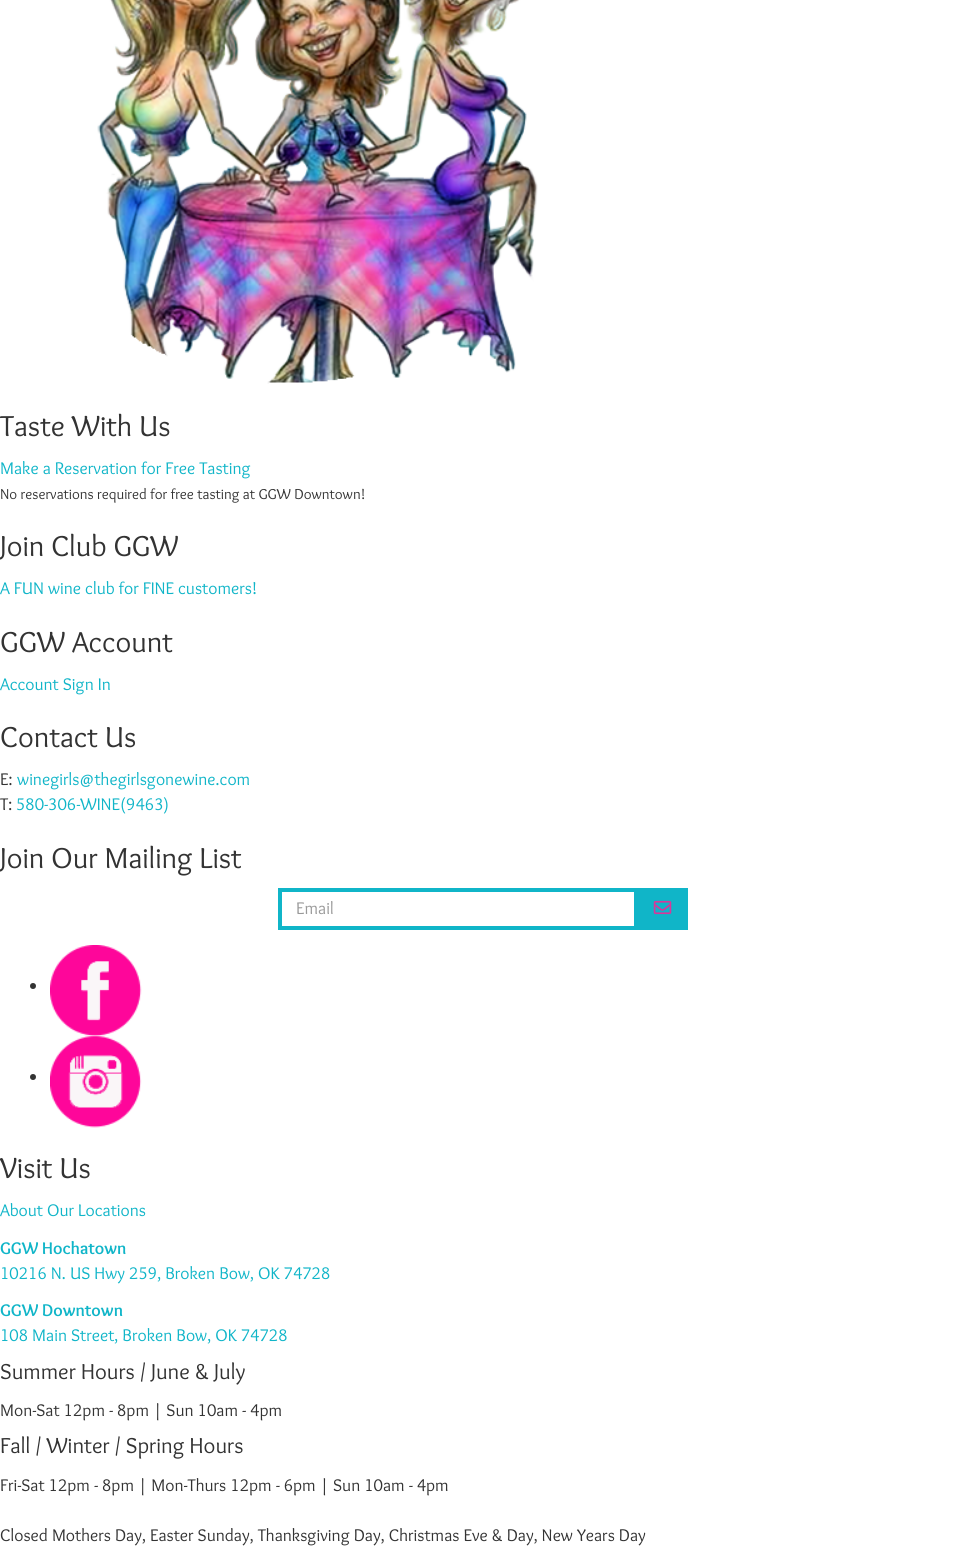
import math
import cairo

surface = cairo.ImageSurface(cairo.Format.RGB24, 980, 1554)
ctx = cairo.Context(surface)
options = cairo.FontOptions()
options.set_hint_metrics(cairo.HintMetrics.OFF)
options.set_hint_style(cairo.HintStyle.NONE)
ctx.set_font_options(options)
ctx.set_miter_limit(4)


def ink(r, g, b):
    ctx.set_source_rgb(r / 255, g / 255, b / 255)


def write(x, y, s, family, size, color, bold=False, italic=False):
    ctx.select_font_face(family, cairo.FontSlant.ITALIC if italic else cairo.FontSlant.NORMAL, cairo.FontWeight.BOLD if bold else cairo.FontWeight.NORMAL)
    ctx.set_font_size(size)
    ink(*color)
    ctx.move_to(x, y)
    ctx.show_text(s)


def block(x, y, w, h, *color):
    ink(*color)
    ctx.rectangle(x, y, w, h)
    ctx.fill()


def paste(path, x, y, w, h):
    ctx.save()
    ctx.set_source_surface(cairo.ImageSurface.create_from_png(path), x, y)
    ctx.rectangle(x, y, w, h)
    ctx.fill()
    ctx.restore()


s1 = dict(family="Overlock", size=30, color=(51, 51, 51))
s2 = dict(family="Overlock", size=17.5, color=(16, 181, 200))
s3 = dict(family="Overlock", size=14.9, color=(51, 51, 51))
s4 = dict(family="Overlock", size=17.5, color=(51, 51, 51))
s5 = dict(family="Overlock", size=17.5, color=(153, 153, 153))
s6 = dict(family="Overlock", size=17.5, color=(16, 181, 200), bold=True)
s7 = dict(family="Overlock", size=22.5, color=(51, 51, 51))

ink(255, 255, 255)
ctx.paint()
paste("pic1.png", 97, 0, 441, 384)
write(0, 436, "Taste With Us", **s1)
write(0, 474, "Make a Reservation for Free Tasting", **s2)
write(0, 499, "No reservations required for free tasting at GGW Downtown!", **s3)
write(0, 556, "Join Club GGW", **s1)
write(0, 594, "A FUN wine club for FINE customers!", **s2)
write(0, 652, "GGW Account", **s1)
write(0, 690, "Account Sign In", **s2)
write(0, 747, "Contact Us", **s1)
write(0, 785, "E:", **s4)
write(17, 785, "winegirls@thegirlsgonewine.com", **s2)
write(0, 810, "T:", **s4)
write(16, 810, "580-306-WINE(9463)", **s2)
write(0, 868, "Join Our Mailing List", **s1)
ctx.rectangle(280, 890, 356, 38)
ink(16, 181, 200)
ctx.set_line_width(4)
ctx.stroke()
write(296, 914, "Email", **s5)
block(638, 888, 50, 42, 16, 181, 200)
paste("pic2.png", 653, 900, 19, 15)
ink(51, 51, 51)
ctx.arc(33, 986, 3, 0, 2 * math.pi)
ctx.fill()
paste("pic3.png", 50, 945, 92, 92)
ctx.arc(33, 1077, 3, 0, 2 * math.pi)
ctx.fill()
paste("pic4.png", 50, 1036, 92, 92)
write(0, 1178, "Visit Us", **s1)
write(0, 1216, "About Our Locations", **s2)
write(0, 1254, "GGW Hochatown", **s6)
write(0, 1279, "10216 N. US Hwy 259, Broken Bow, OK 74728", **s2)
write(0, 1316, "GGW Downtown", **s6)
write(0, 1341, "108 Main Street, Broken Bow, OK 74728", **s2)
write(0, 1379, "Summer Hours / June & July", **s7)
write(0, 1416, "Mon-Sat 12pm - 8pm | Sun 10am - 4pm", **s4)
write(0, 1453, "Fall / Winter / Spring Hours", **s7)
write(0, 1491, "Fri-Sat 12pm - 8pm | Mon-Thurs 12pm - 6pm | Sun 10am - 4pm", **s4)
write(0, 1541, "Closed Mothers Day, Easter Sunday, Thanksgiving Day, Christmas Eve & Day, New Years Day", **s4)
surface.write_to_png("screenshot.png")
